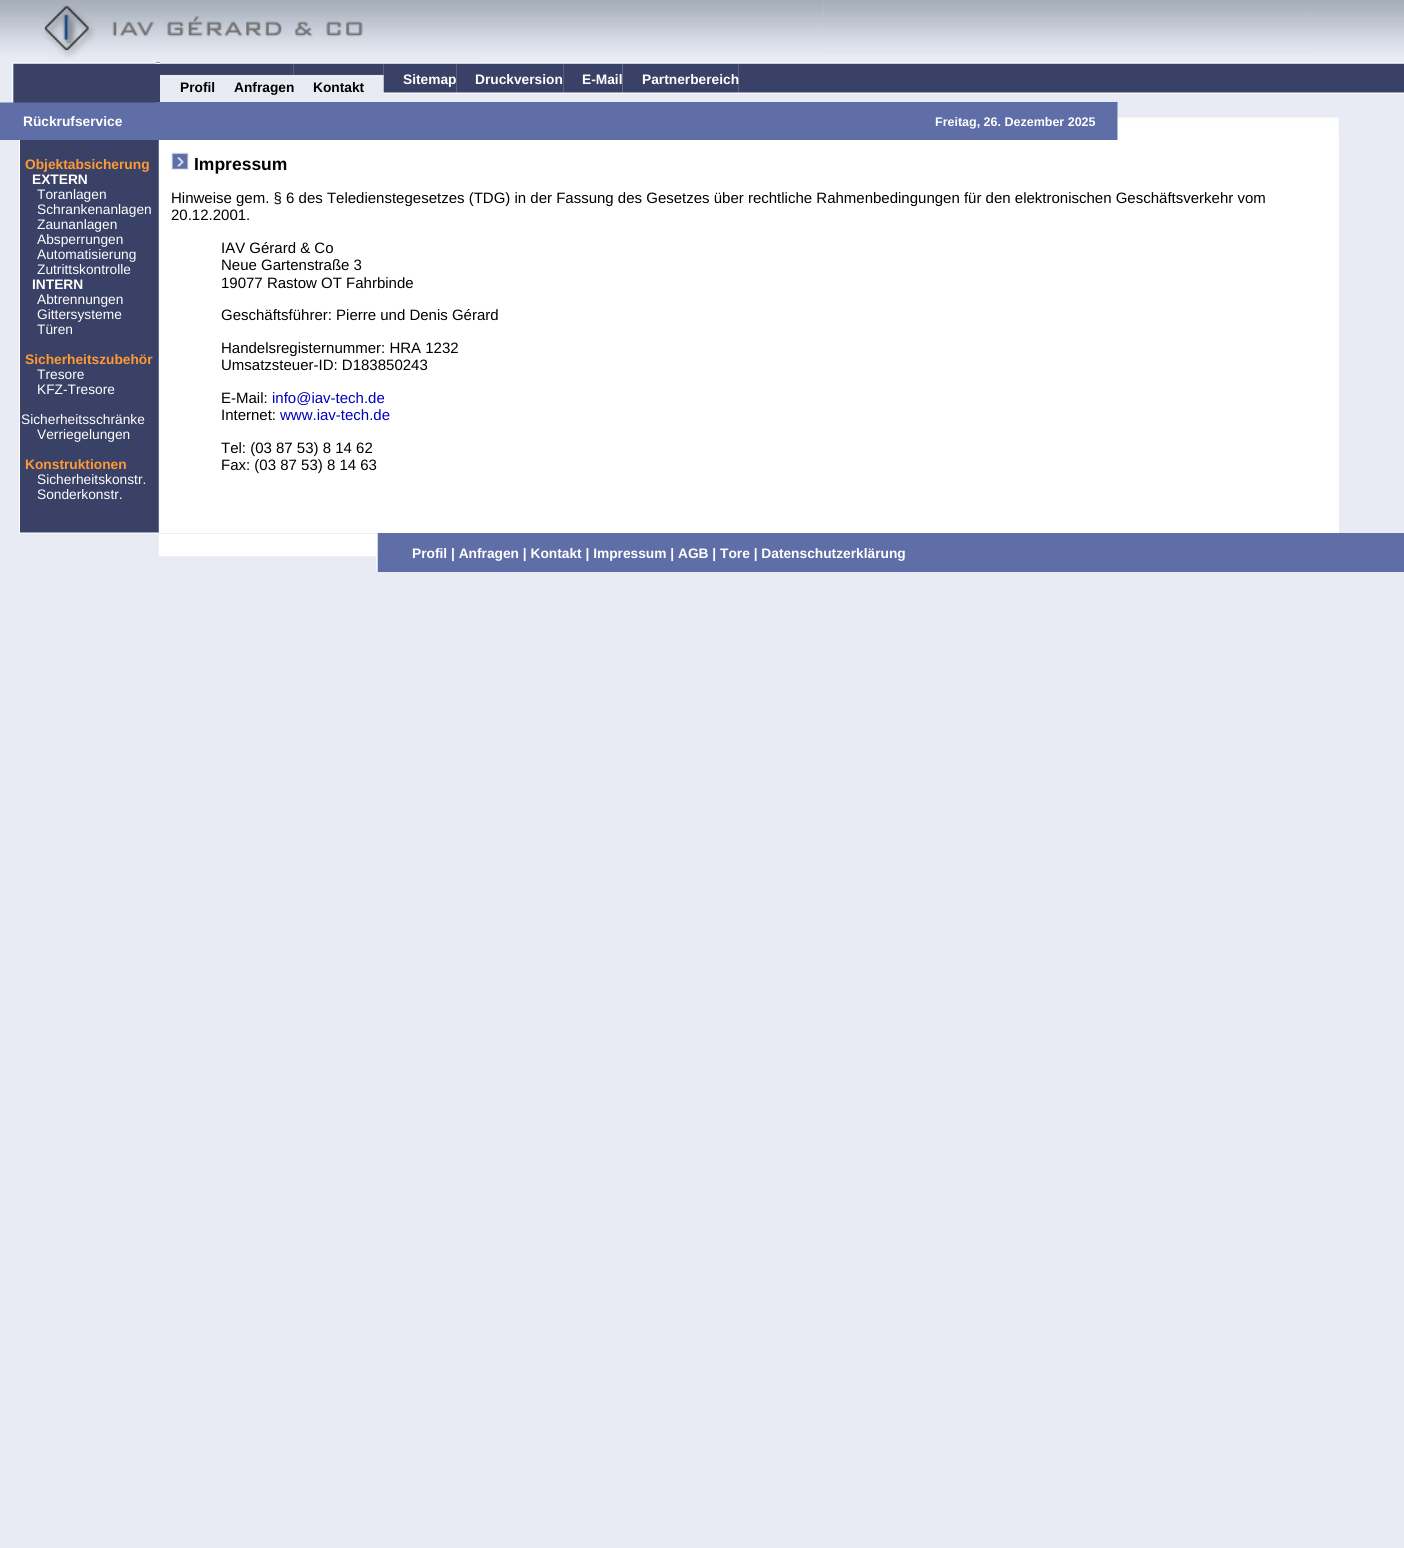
import math
import cairo

surface = cairo.ImageSurface(cairo.Format.RGB24, 1404, 1548)
ctx = cairo.Context(surface)
options = cairo.FontOptions()
options.set_hint_metrics(cairo.HintMetrics.OFF)
options.set_hint_style(cairo.HintStyle.NONE)
ctx.set_font_options(options)
ctx.set_miter_limit(4)


def ink(r, g, b):
    ctx.set_source_rgb(r / 255, g / 255, b / 255)


def write(x, y, s, family, size, color, bold=False, italic=False):
    ctx.select_font_face(family, cairo.FontSlant.ITALIC if italic else cairo.FontSlant.NORMAL, cairo.FontWeight.BOLD if bold else cairo.FontWeight.NORMAL)
    ctx.set_font_size(size)
    ink(*color)
    ctx.move_to(x, y)
    ctx.show_text(s)


def block(x, y, w, h, *color):
    ink(*color)
    ctx.rectangle(x, y, w, h)
    ctx.fill()


def paste(path, x, y, w, h):
    ctx.save()
    ctx.set_source_surface(cairo.ImageSurface.create_from_png(path), x, y)
    ctx.rectangle(x, y, w, h)
    ctx.fill()
    ctx.restore()


s1 = dict(family="Liberation Sans", size=13.75, color=(255, 255, 255), bold=True)
s2 = dict(family="Liberation Sans", size=13.75, color=(0, 0, 0), bold=True)
s3 = dict(family="Liberation Sans", size=12.5, color=(255, 255, 255), bold=True)
s4 = dict(family="Liberation Sans", size=13.75, color=(255, 153, 51), bold=True)
s5 = dict(family="Liberation Sans", size=13.75, color=(255, 255, 255))
s6 = dict(family="Liberation Sans", size=17.5, color=(0, 0, 0), bold=True)
s7 = dict(family="Liberation Sans", size=15, color=(0, 0, 0))
s8 = dict(family="Liberation Sans", size=15, color=(0, 0, 191))

ink(232, 235, 244)
ctx.paint()
paste("pic1.png", 0, 0, 824, 55)
block(156, 62, 4, 41, 57, 65, 102)
paste("pic12.png", 215, 62, 79, 15)
paste("pic13.png", 293, 62, 91, 15)
paste("pic6.png", 383, 62, 74, 32)
paste("pic7.png", 456, 62, 108, 32)
paste("pic11.png", 160, 62, 55, 15)
paste("pic2.png", 43, 6, 437, 57)
paste("pic3.png", 824, 0, 488, 54)
paste("pic4.png", 1311, 0, 93, 55)
block(156, 63, 4, 1, 255, 255, 255)
block(0, 102, 1118, 38, 95, 110, 167)
paste("pic5.png", 0, 62, 157, 41)
write(403, 84, "Sitemap", **s1)
write(475, 84, "Druckversion", **s1)
paste("pic8.png", 563, 62, 60, 32)
write(582, 84, "E-Mail", **s1)
paste("pic9.png", 622, 62, 117, 32)
paste("pic10.png", 738, 62, 666, 32)
write(642, 84, "Partnerbereich", **s1)
write(180, 92, "Profil", **s2)
write(234, 92, "Anfragen", **s2)
write(313, 92, "Kontakt", **s2)
write(23, 126, "Rückrufservice", **s1)
write(935, 126, "Freitag, 26. Dezember 2025", **s3)
paste("pic14.png", 1117, 102, 222, 38)
paste("pic15.png", 19, 140, 140, 393)
block(19, 533, 141, 1, 255, 255, 255)
write(25, 169, "Objektabsicherung", **s4)
write(32, 184, "EXTERN", **s1)
write(37, 199, "Toranlagen", **s5)
write(37, 214, "Schrankenanlagen", **s5)
write(37, 229, "Zaunanlagen", **s5)
write(37, 244, "Absperrungen", **s5)
write(37, 259, "Automatisierung", **s5)
write(37, 274, "Zutrittskontrolle", **s5)
write(32, 289, "INTERN", **s1)
write(37, 304, "Abtrennungen", **s5)
write(37, 319, "Gittersysteme", **s5)
write(37, 334, "Türen", **s5)
write(25, 364, "Sicherheitszubehör", **s4)
write(37, 379, "Tresore", **s5)
write(37, 394, "KFZ-Tresore", **s5)
write(21, 424, "Sicherheitsschränke", **s5)
write(37, 439, "Verriegelungen", **s5)
write(25, 469, "Konstruktionen", **s4)
write(37, 484, "Sicherheitskonstr.", **s5)
write(37, 499, "Sonderkonstr.", **s5)
block(159, 140, 1180, 393, 255, 255, 255)
paste("pic16.png", 171, 152, 18, 18)
write(194, 170, "Impressum", **s6)
write(171, 203, "Hinweise gem. § 6 des Teledienstegesetzes (TDG) in der Fassung des Gesetzes über rechtliche Rahmenbedingungen für den elektronischen Geschäftsverkehr vom", **s7)
write(171, 220, "20.12.2001.", **s7)
write(221, 253, "IAV Gérard & Co", **s7)
write(221, 270, "Neue Gartenstraße 3", **s7)
write(221, 288, "19077 Rastow OT Fahrbinde", **s7)
write(221, 320, "Geschäftsführer: Pierre und Denis Gérard", **s7)
write(221, 353, "Handelsregisternummer: HRA 1232", **s7)
write(221, 370, "Umsatzsteuer-ID: D183850243", **s7)
write(221, 403, "E-Mail:", **s7)
write(272, 403, "info@iav-tech.de", **s8)
write(221, 420, "Internet:", **s7)
write(280, 420, "www.iav-tech.de", **s8)
write(221, 453, "Tel: (03 87 53) 8 14 62", **s7)
write(221, 470, "Fax: (03 87 53) 8 14 63", **s7)
paste("pic17.png", 19, 533, 139, 1)
block(378, 533, 1026, 39, 95, 110, 167)
block(158, 533, 2, 1, 232, 235, 244)
paste("pic19.png", 377, 533, 1, 39)
paste("pic18.png", 158, 533, 220, 39)
write(412, 558, "Profil | Anfragen | Kontakt | Impressum | AGB | Tore | Datenschutzerklärung", **s1)
surface.write_to_png("screenshot.png")
